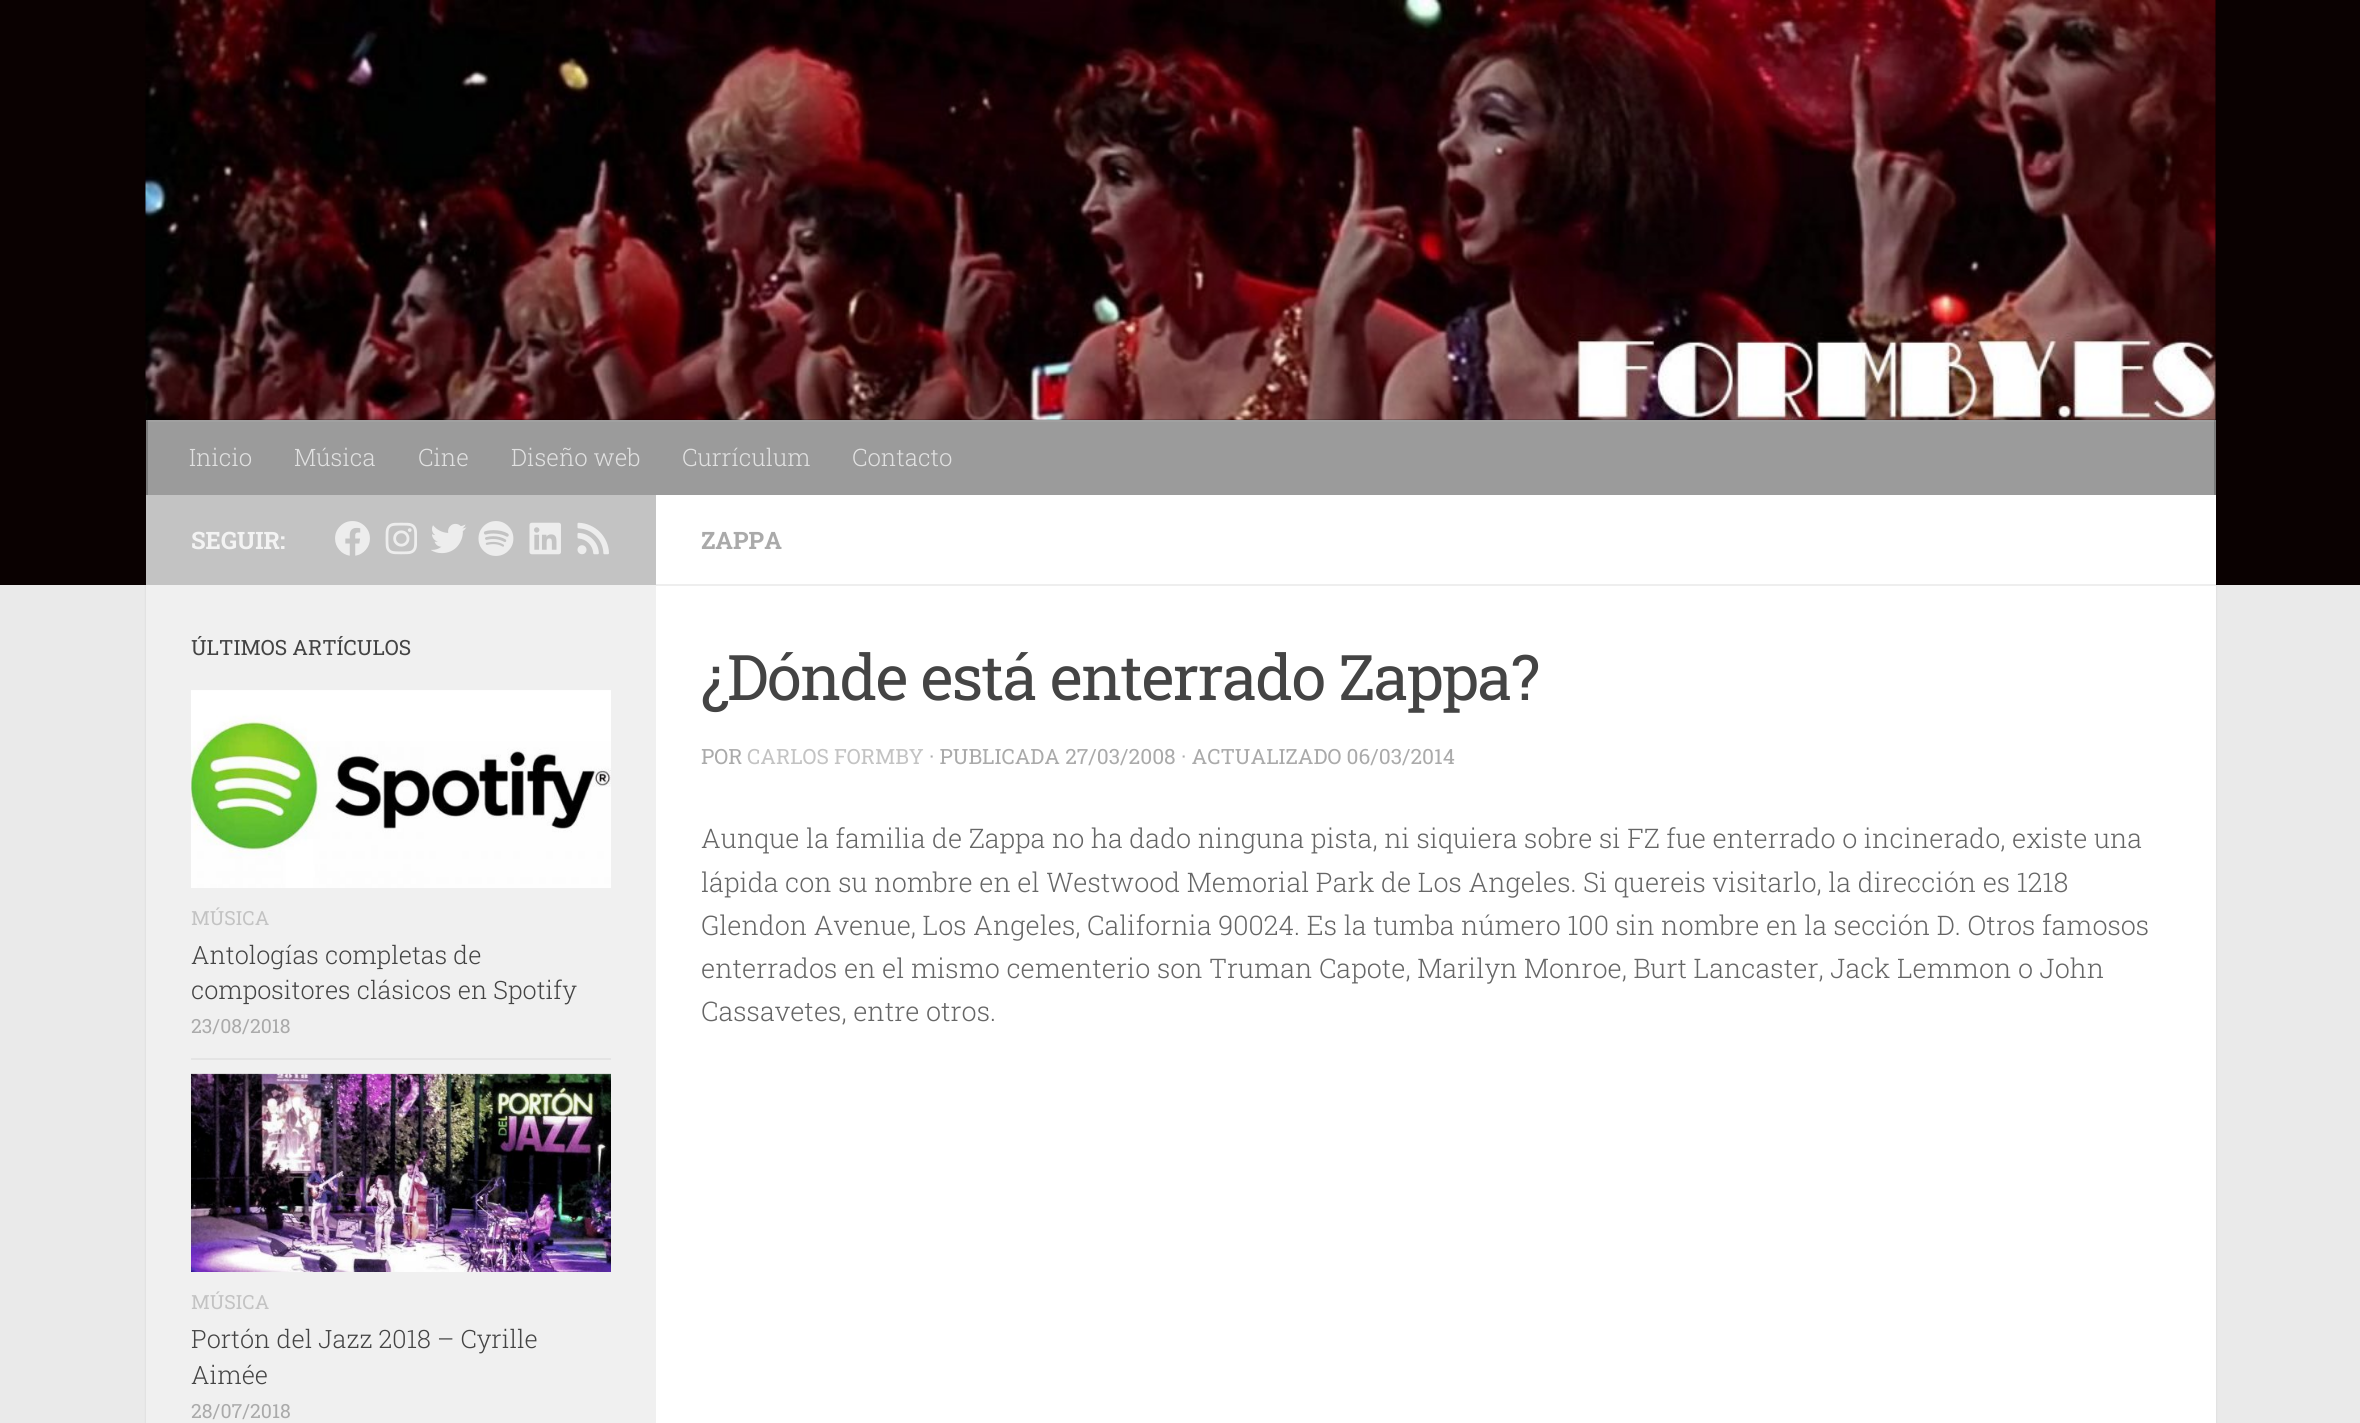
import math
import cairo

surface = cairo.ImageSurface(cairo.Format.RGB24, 2360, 1423)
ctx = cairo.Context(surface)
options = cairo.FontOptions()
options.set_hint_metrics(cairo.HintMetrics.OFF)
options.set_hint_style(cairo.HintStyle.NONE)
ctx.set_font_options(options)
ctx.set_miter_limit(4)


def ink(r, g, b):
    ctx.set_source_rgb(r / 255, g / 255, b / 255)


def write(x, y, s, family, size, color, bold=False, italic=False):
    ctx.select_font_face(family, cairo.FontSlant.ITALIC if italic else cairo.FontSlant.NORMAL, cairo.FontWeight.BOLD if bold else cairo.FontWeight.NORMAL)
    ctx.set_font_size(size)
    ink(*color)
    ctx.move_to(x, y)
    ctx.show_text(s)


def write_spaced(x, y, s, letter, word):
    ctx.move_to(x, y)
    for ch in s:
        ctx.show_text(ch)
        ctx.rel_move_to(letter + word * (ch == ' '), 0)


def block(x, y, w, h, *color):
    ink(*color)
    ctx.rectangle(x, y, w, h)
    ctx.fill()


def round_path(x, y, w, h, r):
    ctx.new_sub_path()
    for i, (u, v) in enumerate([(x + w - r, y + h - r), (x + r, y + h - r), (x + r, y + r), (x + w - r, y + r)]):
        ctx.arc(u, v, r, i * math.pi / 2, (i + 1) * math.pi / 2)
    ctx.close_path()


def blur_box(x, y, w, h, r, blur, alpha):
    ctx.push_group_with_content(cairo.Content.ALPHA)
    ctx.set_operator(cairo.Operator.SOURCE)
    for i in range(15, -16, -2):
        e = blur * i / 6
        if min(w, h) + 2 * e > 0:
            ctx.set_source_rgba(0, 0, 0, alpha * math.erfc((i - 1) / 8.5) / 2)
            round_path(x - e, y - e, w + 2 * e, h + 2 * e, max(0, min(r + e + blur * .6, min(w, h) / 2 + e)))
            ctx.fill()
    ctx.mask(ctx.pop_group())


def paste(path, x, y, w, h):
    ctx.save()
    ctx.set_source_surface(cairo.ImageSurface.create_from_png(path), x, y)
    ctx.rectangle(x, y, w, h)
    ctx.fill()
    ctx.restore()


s1 = dict(family="Roboto Slab Light", size=24, color=(225, 225, 225))
s2 = dict(family="Roboto Slab", size=24, color=(243, 243, 243), bold=True)
s3 = dict(family="Roboto Slab", size=21, color=(68, 68, 68))
s4 = dict(family="Roboto Slab", size=19.5, color=(195, 195, 195))
s5 = dict(family="Roboto Slab Light", size=25.25, color=(68, 68, 68))
s6 = dict(family="Roboto Slab", size=19.5, color=(170, 170, 170))
s7 = dict(family="Roboto Slab", size=24, color=(170, 170, 170), bold=True)
s8 = dict(family="Roboto Slab", size=21, color=(170, 170, 170))
s9 = dict(family="Roboto Slab", size=21, color=(195, 195, 195))
s10 = dict(family="Roboto Slab Light", size=27, color=(102, 102, 102))

ink(234, 234, 234)
ctx.paint()
ink(0, 0, 0)
blur_box(146, 497, 2070, 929, 0, 1, 0.1)
block(0, 0, 2360, 585, 10, 1, 1)
paste("pic1.png", 145, 0, 2071, 420)
ctx.set_source_rgba(0, 0, 0, 0.2)
ctx.new_path()
ctx.move_to(146, 419)
ctx.line_to(146, 420)
ctx.line_to(2216, 420)
ctx.line_to(2216, 494)
ctx.line_to(2216, 419)
ctx.close_path()
ctx.fill()
block(148, 422, 2066, 73, 155, 155, 155)
block(146, 420, 2070, 2, 160, 160, 160)
block(2214, 420, 2, 75, 124, 124, 124)
block(2214, 420, 2, 2, 131, 131, 131)
block(146, 420, 2, 75, 124, 124, 124)
block(146, 420, 2, 2, 131, 131, 131)
write(189, 466, "Inicio", **s1)
write(294, 466, "Música", **s1)
write(418, 466, "Cine", **s1)
write(511, 466, "Diseño web", **s1)
write(682, 466, "Currículum", **s1)
write(852, 466, "Contacto", **s1)
block(656, 495, 1560, 928, 255, 255, 255)
block(146, 495, 510, 90, 195, 195, 195)
write(191, 549, "SEGUIR:", **s2)
paste("pic2.png", 335, 521, 35, 35)
paste("pic3.png", 385, 522, 32, 33)
paste("pic4.png", 431, 523, 36, 31)
paste("pic5.png", 478, 521, 36, 35)
paste("pic6.png", 529, 522, 32, 33)
paste("pic7.png", 577, 522, 32, 33)
block(146, 585, 510, 838, 240, 240, 240)
write(191, 655, "ÚLTIMOS ARTÍCULOS", **s3)
block(191, 1058, 420, 2, 228, 228, 228)
paste("pic8.png", 191, 690, 420, 198)
write(191, 925, "MÚSICA", **s4)
write(191, 964, "Antologías completas de", **s5)
write(191, 999, "compositores clásicos en Spotify", **s5)
write(191, 1033, "23/08/2018", **s6)
paste("pic9.png", 191, 1073, 420, 199)
write(191, 1309, "MÚSICA", **s4)
write(191, 1348, "Portón del Jazz 2018 – Cyrille", **s5)
write(191, 1384, "Aimée", **s5)
write(191, 1418, "28/07/2018", **s6)
block(656, 584, 1560, 2, 238, 238, 238)
write(701, 549, "ZAPPA", **s7)
ctx.select_font_face("Roboto Slab")
ctx.set_font_size(62.9)
ink(68, 68, 68)
write_spaced(701, 700, "¿Dónde está enterrado Zappa?", -1.5, 0)
write(701, 764, "POR", **s8)
write(747, 764, "CARLOS FORMBY", **s9)
write(929, 764, "· PUBLICADA 27/03/2008 · ACTUALIZADO 06/03/2014", **s8)
write(701, 848, "Aunque la familia de Zappa no ha dado ninguna pista, ni siquiera sobre si FZ fue enterrado o incinerado, existe una", **s10)
write(701, 892, "lápida con su nombre en el Westwood Memorial Park de Los Angeles. Si quereis visitarlo, la dirección es 1218", **s10)
write(701, 935, "Glendon Avenue, Los Angeles, California 90024. Es la tumba número 100 sin nombre en la sección D. Otros famosos", **s10)
write(701, 978, "enterrados en el mismo cementerio son Truman Capote, Marilyn Monroe, Burt Lancaster, Jack Lemmon o John", **s10)
write(701, 1021, "Cassavetes, entre otros.", **s10)
surface.write_to_png("screenshot.png")
